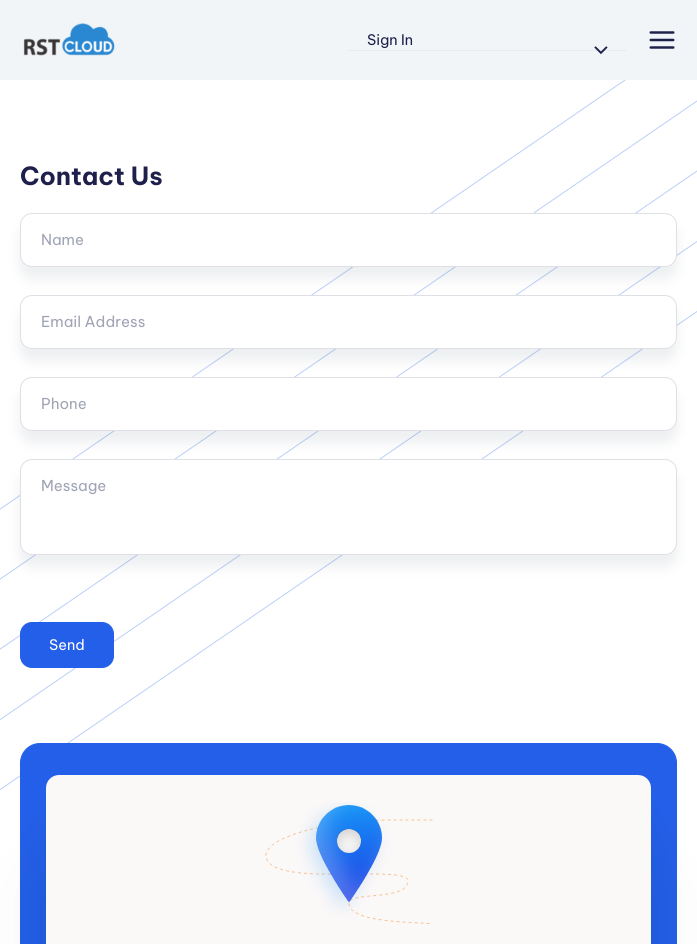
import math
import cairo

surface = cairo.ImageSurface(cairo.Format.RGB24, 697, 944)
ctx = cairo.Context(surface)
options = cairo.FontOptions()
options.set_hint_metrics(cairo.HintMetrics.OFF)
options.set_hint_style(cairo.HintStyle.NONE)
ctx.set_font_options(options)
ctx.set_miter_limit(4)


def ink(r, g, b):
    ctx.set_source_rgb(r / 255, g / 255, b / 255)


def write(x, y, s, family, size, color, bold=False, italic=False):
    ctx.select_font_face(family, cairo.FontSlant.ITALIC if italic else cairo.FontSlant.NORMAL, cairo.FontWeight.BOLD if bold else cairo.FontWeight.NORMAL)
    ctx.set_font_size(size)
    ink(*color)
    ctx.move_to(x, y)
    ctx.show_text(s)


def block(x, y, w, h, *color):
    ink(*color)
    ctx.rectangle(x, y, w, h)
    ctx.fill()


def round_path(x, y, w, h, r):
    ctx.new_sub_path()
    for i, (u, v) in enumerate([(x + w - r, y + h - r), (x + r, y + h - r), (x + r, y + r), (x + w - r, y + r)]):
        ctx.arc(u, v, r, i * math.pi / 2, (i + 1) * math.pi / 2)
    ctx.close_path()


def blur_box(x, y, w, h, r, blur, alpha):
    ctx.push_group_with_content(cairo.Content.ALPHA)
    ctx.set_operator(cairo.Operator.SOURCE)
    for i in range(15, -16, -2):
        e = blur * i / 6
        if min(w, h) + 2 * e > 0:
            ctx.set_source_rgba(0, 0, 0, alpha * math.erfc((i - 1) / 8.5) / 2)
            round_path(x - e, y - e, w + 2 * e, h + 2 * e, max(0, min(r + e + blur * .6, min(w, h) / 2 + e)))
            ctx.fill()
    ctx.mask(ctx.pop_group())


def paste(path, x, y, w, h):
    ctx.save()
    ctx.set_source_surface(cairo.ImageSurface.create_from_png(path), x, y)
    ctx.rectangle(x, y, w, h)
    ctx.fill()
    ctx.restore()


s1 = dict(family="Be Vietnam Pro", size=14.5, color=(30, 31, 75))
s2 = dict(family="Be Vietnam Pro", size=25, color=(30, 31, 75), bold=True)
s3 = dict(family="Be Vietnam Pro", size=15, color=(159, 163, 180))
s4 = dict(family="Be Vietnam Pro", size=14.5, color=(255, 255, 255))

ink(255, 255, 255)
ctx.paint()
ctx.new_path()
ctx.move_to(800.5, 240.5)
ctx.line_to(-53, 826)
ink(189, 207, 248)
ctx.set_line_width(1)
ctx.stroke()
ctx.new_path()
ctx.move_to(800.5, 170.5)
ctx.line_to(-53, 756)
ctx.stroke()
ctx.new_path()
ctx.move_to(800.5, 100)
ctx.line_to(-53, 685.5)
ctx.stroke()
ctx.new_path()
ctx.move_to(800.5, 30)
ctx.line_to(-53, 615.5)
ctx.stroke()
ctx.new_path()
ctx.move_to(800.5, -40.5)
ctx.line_to(-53, 545.5)
ctx.stroke()
block(0, 0, 697, 80, 242, 245, 247)
paste("pic1.png", 23, 23, 92, 33)
block(347, 50, 279, 1, 234, 234, 234)
write(367, 45, "Sign In", **s1)
paste("pic2.png", 594, 46, 14, 9)
paste("pic3.png", 649, 31, 26, 18)
write(20, 185, "Contact Us", **s2)
ink(71, 95, 107)
blur_box(20, 225, 657, 54, 12, 6, 0.1)
ink(255, 255, 255)
round_path(20, 213, 657, 54, 12)
ctx.fill()
round_path(20.5, 213.5, 656, 53, 11.5)
ctx.set_source_rgba(0.373, 0.4, 0.51, 0.2)
ctx.stroke()
write(41, 245, "Name", **s3)
ink(71, 95, 107)
blur_box(20, 307, 657, 54, 12, 6, 0.1)
ink(255, 255, 255)
round_path(20, 295, 657, 54, 12)
ctx.fill()
round_path(20.5, 295.5, 656, 53, 11.5)
ctx.set_source_rgba(0.373, 0.4, 0.51, 0.2)
ctx.stroke()
write(41, 327, "Email Address", **s3)
ink(71, 95, 107)
blur_box(20, 389, 657, 54, 12, 6, 0.1)
ink(255, 255, 255)
round_path(20, 377, 657, 54, 12)
ctx.fill()
round_path(20.5, 377.5, 656, 53, 11.5)
ctx.set_source_rgba(0.373, 0.4, 0.51, 0.2)
ctx.stroke()
write(41, 409, "Phone", **s3)
ink(71, 95, 107)
blur_box(20, 471, 657, 96, 12, 6, 0.1)
ink(255, 255, 255)
round_path(20, 459, 657, 96, 12)
ctx.fill()
round_path(20.5, 459.5, 656, 95, 11.5)
ctx.set_source_rgba(0.373, 0.4, 0.51, 0.2)
ctx.stroke()
write(41, 491, "Message", **s3)
ink(35, 95, 232)
round_path(20.5, 622.5, 93, 45, 11.5)
ctx.fill_preserve()
ctx.stroke()
write(49, 650, "Send", **s4)
ink(35, 95, 232)
round_path(20.5, 743.5, 656, 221, 19.5)
ctx.fill_preserve()
ctx.stroke()
ink(0, 0, 0)
blur_box(46, 817, 605, 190, 13, 16.5, 0.05)
blur_box(46, 875, 605, 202, 13, 40, 0.07)
ink(251, 248, 248)
round_path(46, 775, 605, 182, 13)
ctx.fill()
paste("pic4.png", 265, 802, 168, 123)
surface.write_to_png("screenshot.png")
